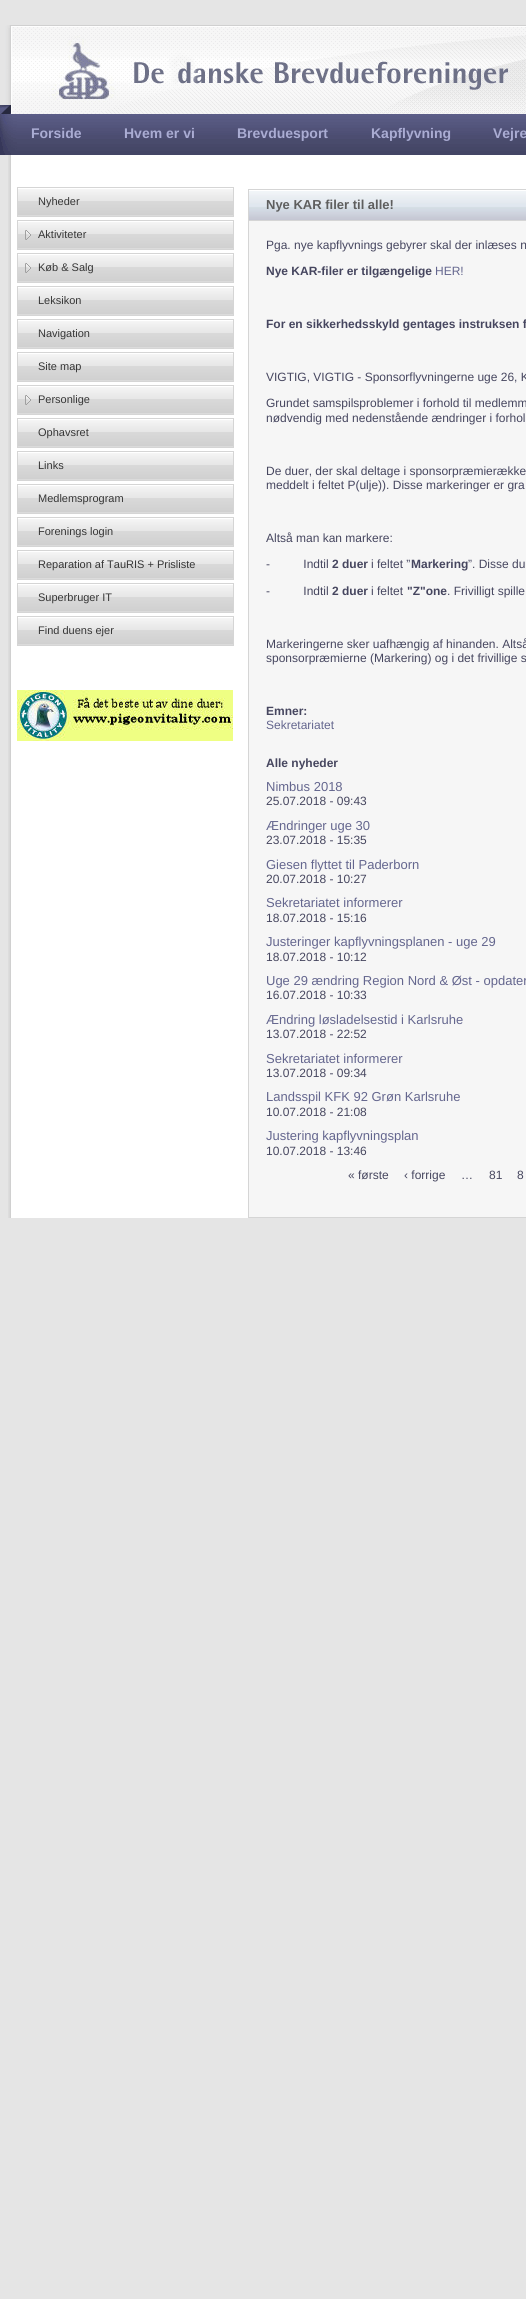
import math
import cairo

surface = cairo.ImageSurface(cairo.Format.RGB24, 526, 2299)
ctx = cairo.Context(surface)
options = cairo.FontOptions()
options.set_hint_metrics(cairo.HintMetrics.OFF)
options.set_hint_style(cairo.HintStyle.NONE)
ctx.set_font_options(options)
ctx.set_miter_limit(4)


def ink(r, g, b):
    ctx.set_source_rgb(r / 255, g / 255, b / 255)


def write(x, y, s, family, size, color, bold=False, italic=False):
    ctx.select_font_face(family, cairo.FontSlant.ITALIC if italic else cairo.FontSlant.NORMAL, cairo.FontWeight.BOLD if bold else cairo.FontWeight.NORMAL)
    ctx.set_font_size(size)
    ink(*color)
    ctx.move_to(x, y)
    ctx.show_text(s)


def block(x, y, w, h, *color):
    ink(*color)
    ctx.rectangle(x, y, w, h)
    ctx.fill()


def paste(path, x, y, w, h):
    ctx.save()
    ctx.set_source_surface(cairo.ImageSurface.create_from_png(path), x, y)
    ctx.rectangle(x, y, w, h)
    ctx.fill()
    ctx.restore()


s1 = dict(family="Liberation Sans", size=14, color=(170, 172, 211), bold=True)
s2 = dict(family="Liberation Sans", size=11, color=(54, 54, 54))
s3 = dict(family="Liberation Sans", size=13, color=(94, 94, 94), bold=True)
s4 = dict(family="Liberation Sans", size=12, color=(70, 70, 95))
s5 = dict(family="Liberation Sans", size=12, color=(70, 70, 95), bold=True)
s6 = dict(family="Liberation Sans", size=12, color=(100, 102, 142))
s7 = dict(family="Liberation Sans", size=13, color=(100, 102, 142))

ink(229, 229, 229)
ctx.paint()
paste("pic1.png", 0, 25, 526, 130)
write(31, 138, "Forside", **s1)
write(124, 138, "Hvem er vi", **s1)
write(237, 138, "Brevduesport", **s1)
write(371, 138, "Kapflyvning", **s1)
write(493, 138, "Vejre", **s1)
paste("pic2.png", 8, 155, 518, 1063)
paste("pic3.png", 18, 188, 215, 28)
ctx.rectangle(17.5, 187.5, 216, 29)
ink(213, 213, 213)
ctx.set_line_width(1)
ctx.stroke()
write(38, 205, "Nyheder", **s2)
paste("pic4.png", 18, 221, 215, 28)
ctx.rectangle(17.5, 220.5, 216, 29)
ink(213, 213, 213)
ctx.stroke()
write(38, 238, "Aktiviteter", **s2)
paste("pic4.png", 18, 254, 215, 28)
ctx.rectangle(17.5, 253.5, 216, 29)
ink(213, 213, 213)
ctx.stroke()
write(38, 271, "Køb & Salg", **s2)
paste("pic3.png", 18, 287, 215, 28)
ctx.rectangle(17.5, 286.5, 216, 29)
ink(213, 213, 213)
ctx.stroke()
write(38, 304, "Leksikon", **s2)
paste("pic3.png", 18, 320, 215, 28)
ctx.rectangle(17.5, 319.5, 216, 29)
ink(213, 213, 213)
ctx.stroke()
write(38, 337, "Navigation", **s2)
paste("pic3.png", 18, 353, 215, 28)
ctx.rectangle(17.5, 352.5, 216, 29)
ink(213, 213, 213)
ctx.stroke()
write(38, 370, "Site map", **s2)
paste("pic4.png", 18, 386, 215, 28)
ctx.rectangle(17.5, 385.5, 216, 29)
ink(213, 213, 213)
ctx.stroke()
write(38, 403, "Personlige", **s2)
paste("pic3.png", 18, 419, 215, 28)
ctx.rectangle(17.5, 418.5, 216, 29)
ink(213, 213, 213)
ctx.stroke()
write(38, 436, "Ophavsret", **s2)
paste("pic3.png", 18, 452, 215, 28)
ctx.rectangle(17.5, 451.5, 216, 29)
ink(213, 213, 213)
ctx.stroke()
write(38, 469, "Links", **s2)
paste("pic3.png", 18, 485, 215, 28)
ctx.rectangle(17.5, 484.5, 216, 29)
ink(213, 213, 213)
ctx.stroke()
write(38, 502, "Medlemsprogram", **s2)
paste("pic3.png", 18, 518, 215, 28)
ctx.rectangle(17.5, 517.5, 216, 29)
ink(213, 213, 213)
ctx.stroke()
write(38, 535, "Forenings login", **s2)
paste("pic3.png", 18, 551, 215, 28)
ctx.rectangle(17.5, 550.5, 216, 29)
ink(213, 213, 213)
ctx.stroke()
write(38, 568, "Reparation af TauRIS + Prisliste", **s2)
paste("pic3.png", 18, 584, 215, 28)
ctx.rectangle(17.5, 583.5, 216, 29)
ink(213, 213, 213)
ctx.stroke()
write(38, 601, "Superbruger IT", **s2)
paste("pic3.png", 18, 617, 215, 28)
ctx.rectangle(17.5, 616.5, 216, 29)
ink(213, 213, 213)
ctx.stroke()
write(38, 634, "Find duens ejer", **s2)
paste("pic5.png", 17, 690, 216, 51)
paste("pic6.png", 249, 190, 277, 30)
ctx.rectangle(248.5, 189.5, 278, 31)
ink(213, 213, 213)
ctx.stroke()
write(266, 209, "Nye KAR filer til alle!", **s3)
block(249, 221, 277, 996, 246, 246, 246)
block(248, 1217, 278, 1, 213, 213, 213)
block(248, 221, 1, 997, 213, 213, 213)
write(266, 249, "Pga. nye kapflyvnings gebyrer skal der inlæses n", **s4)
write(266, 275, "Nye KAR-filer er tilgængelige", **s5)
write(435, 275, "HER!", **s6)
write(266, 328, "For en sikkerhedsskyld gentages instruksen f", **s5)
write(266, 381, "VIGTIG, VIGTIG - Sponsorflyvningerne uge 26, K", **s4)
write(266, 407, "Grundet samspilsproblemer i forhold til medlemm", **s4)
write(266, 422, "nødvendig med nedenstående ændringer i forhol", **s4)
write(266, 475, "De duer, der skal deltage i sponsorpræmierække", **s4)
write(266, 489, "meddelt i feltet P(ulje)). Disse markeringer er gra", **s4)
write(266, 542, "Altså man kan markere:", **s4)
write(266, 568, "-          Indtil", **s4)
write(332, 568, "2 duer", **s5)
write(371, 568, "i feltet ”", **s4)
write(411, 568, "Markering", **s5)
write(468, 568, "”. Disse du", **s4)
write(266, 595, "-          Indtil", **s4)
write(332, 595, "2 duer", **s5)
write(371, 595, "i feltet", **s4)
write(407, 595, "\"Z\"one", **s5)
write(447, 595, ". Frivilligt spille", **s4)
write(266, 648, "Markeringerne sker uafhængig af hinanden. Altså", **s4)
write(266, 662, "sponsorpræmierne (Markering) og i det frivillige s", **s4)
write(266, 715, "Emner:", **s5)
write(266, 729, "Sekretariatet", **s6)
write(266, 767, "Alle nyheder", **s5)
write(266, 791, "Nimbus 2018", **s7)
write(266, 805, "25.07.2018 - 09:43", **s4)
write(266, 830, "Ændringer uge 30", **s7)
write(266, 844, "23.07.2018 - 15:35", **s4)
write(266, 869, "Giesen flyttet til Paderborn", **s7)
write(266, 883, "20.07.2018 - 10:27", **s4)
write(266, 907, "Sekretariatet informerer", **s7)
write(266, 922, "18.07.2018 - 15:16", **s4)
write(266, 946, "Justeringer kapflyvningsplanen - uge 29", **s7)
write(266, 961, "18.07.2018 - 10:12", **s4)
write(266, 985, "Uge 29 ændring Region Nord & Øst - opdater", **s7)
write(266, 999, "16.07.2018 - 10:33", **s4)
write(266, 1024, "Ændring løsladelsestid i Karlsruhe", **s7)
write(266, 1038, "13.07.2018 - 22:52", **s4)
write(266, 1063, "Sekretariatet informerer", **s7)
write(266, 1077, "13.07.2018 - 09:34", **s4)
write(266, 1101, "Landsspil KFK 92 Grøn Karlsruhe", **s7)
write(266, 1116, "10.07.2018 - 21:08", **s4)
write(266, 1140, "Justering kapflyvningsplan", **s7)
write(266, 1155, "10.07.2018 - 13:46", **s4)
write(348, 1179, "« første", **s4)
write(404, 1179, "‹ forrige", **s4)
write(461, 1179, "…", **s4)
write(489, 1179, "81", **s4)
write(517, 1179, "8", **s4)
surface.write_to_png("screenshot.png")
